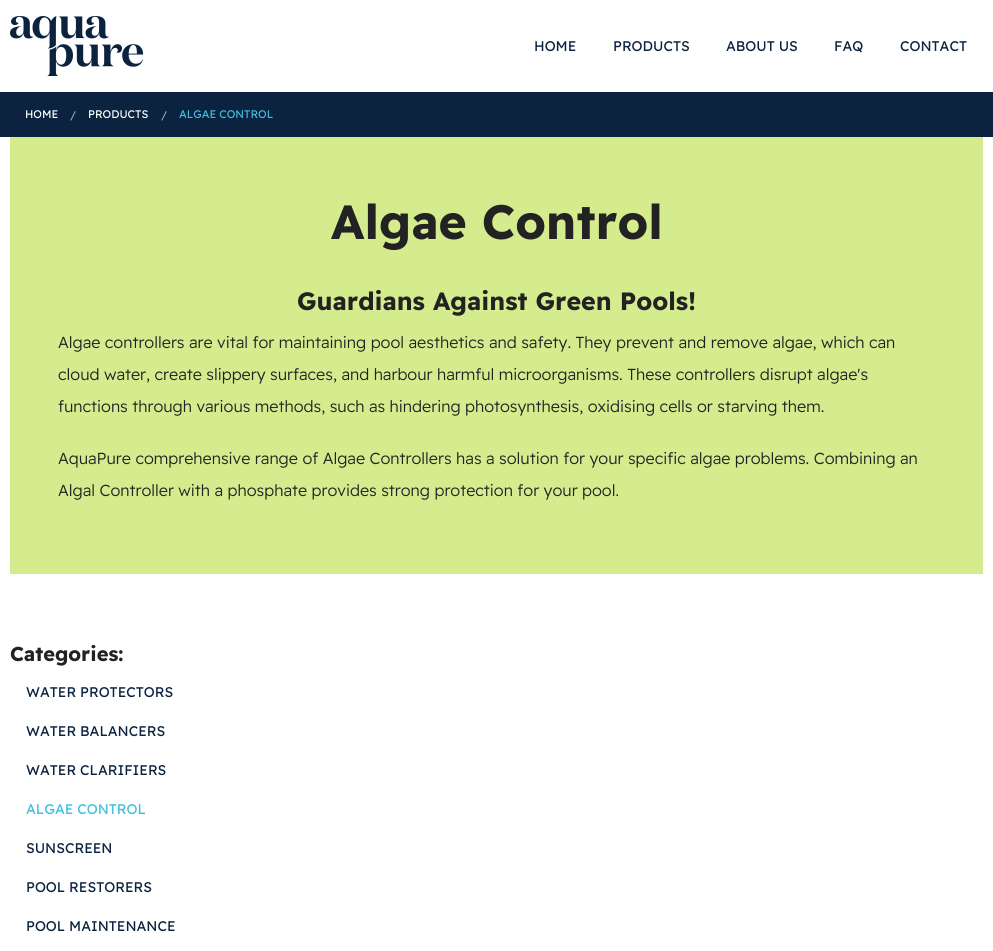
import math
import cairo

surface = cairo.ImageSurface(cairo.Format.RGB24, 993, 951)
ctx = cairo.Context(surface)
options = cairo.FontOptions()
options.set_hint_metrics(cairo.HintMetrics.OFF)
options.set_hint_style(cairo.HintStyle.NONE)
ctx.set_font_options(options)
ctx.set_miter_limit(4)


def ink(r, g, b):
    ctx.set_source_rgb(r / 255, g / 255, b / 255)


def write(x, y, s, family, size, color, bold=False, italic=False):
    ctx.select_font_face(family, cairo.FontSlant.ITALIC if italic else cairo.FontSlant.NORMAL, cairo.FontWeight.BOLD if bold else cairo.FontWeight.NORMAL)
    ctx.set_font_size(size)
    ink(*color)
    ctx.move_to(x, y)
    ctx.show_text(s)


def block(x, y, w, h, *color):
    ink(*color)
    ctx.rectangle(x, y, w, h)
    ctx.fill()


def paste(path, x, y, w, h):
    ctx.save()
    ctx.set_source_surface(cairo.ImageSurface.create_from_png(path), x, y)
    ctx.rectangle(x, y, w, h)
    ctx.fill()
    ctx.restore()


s1 = dict(family="Readex Pro", size=14, color=(12, 35, 64))
s2 = dict(family="Readex Pro", size=11, color=(255, 255, 255))
s3 = dict(family="Readex Pro", size=11, color=(170, 170, 170))
s4 = dict(family="Readex Pro", size=11, color=(64, 191, 222))
s5 = dict(family="Readex Pro", size=48, color=(34, 34, 34), bold=True)
s6 = dict(family="Readex Pro", size=25, color=(34, 34, 34), bold=True)
s7 = dict(family="Readex Pro Light", size=16, color=(34, 34, 34))
s8 = dict(family="Readex Pro", size=20, color=(34, 34, 34), bold=True)
s9 = dict(family="Readex Pro", size=14, color=(64, 191, 222))

ink(255, 255, 255)
ctx.paint()
paste("pic1.png", 10, 16, 134, 60)
write(534, 51, "HOME", **s1)
write(613, 51, "PRODUCTS", **s1)
write(726, 51, "ABOUT US", **s1)
write(834, 51, "FAQ", **s1)
write(900, 51, "CONTACT", **s1)
block(0, 92, 993, 45, 12, 35, 64)
write(25, 118, "HOME", **s2)
write(70, 119, "/", **s3)
write(88, 118, "PRODUCTS", **s2)
write(161, 119, "/", **s3)
write(179, 118, "ALGAE CONTROL", **s4)
block(10, 137, 973, 437, 212, 235, 142)
write(331, 239, "Algae Control", **s5)
write(297, 310, "Guardians Against Green Pools!", **s6)
write(58, 348, "Algae controllers are vital for maintaining pool aesthetics and safety. They prevent and remove algae, which can", **s7)
write(58, 380, "cloud water, create slippery surfaces, and harbour harmful microorganisms. These controllers disrupt algae's", **s7)
write(58, 412, "functions through various methods, such as hindering photosynthesis, oxidising cells or starving them.", **s7)
write(58, 464, "AquaPure comprehensive range of Algae Controllers has a solution for your specific algae problems. Combining an", **s7)
write(58, 496, "Algal Controller with a phosphate provides strong protection for your pool.", **s7)
write(10, 661, "Categories:", **s8)
write(26, 697, "WATER PROTECTORS", **s1)
write(26, 736, "WATER BALANCERS", **s1)
write(26, 775, "WATER CLARIFIERS", **s1)
write(26, 814, "ALGAE CONTROL", **s9)
write(26, 853, "SUNSCREEN", **s1)
write(26, 892, "POOL RESTORERS", **s1)
write(26, 931, "POOL MAINTENANCE", **s1)
surface.write_to_png("screenshot.png")
